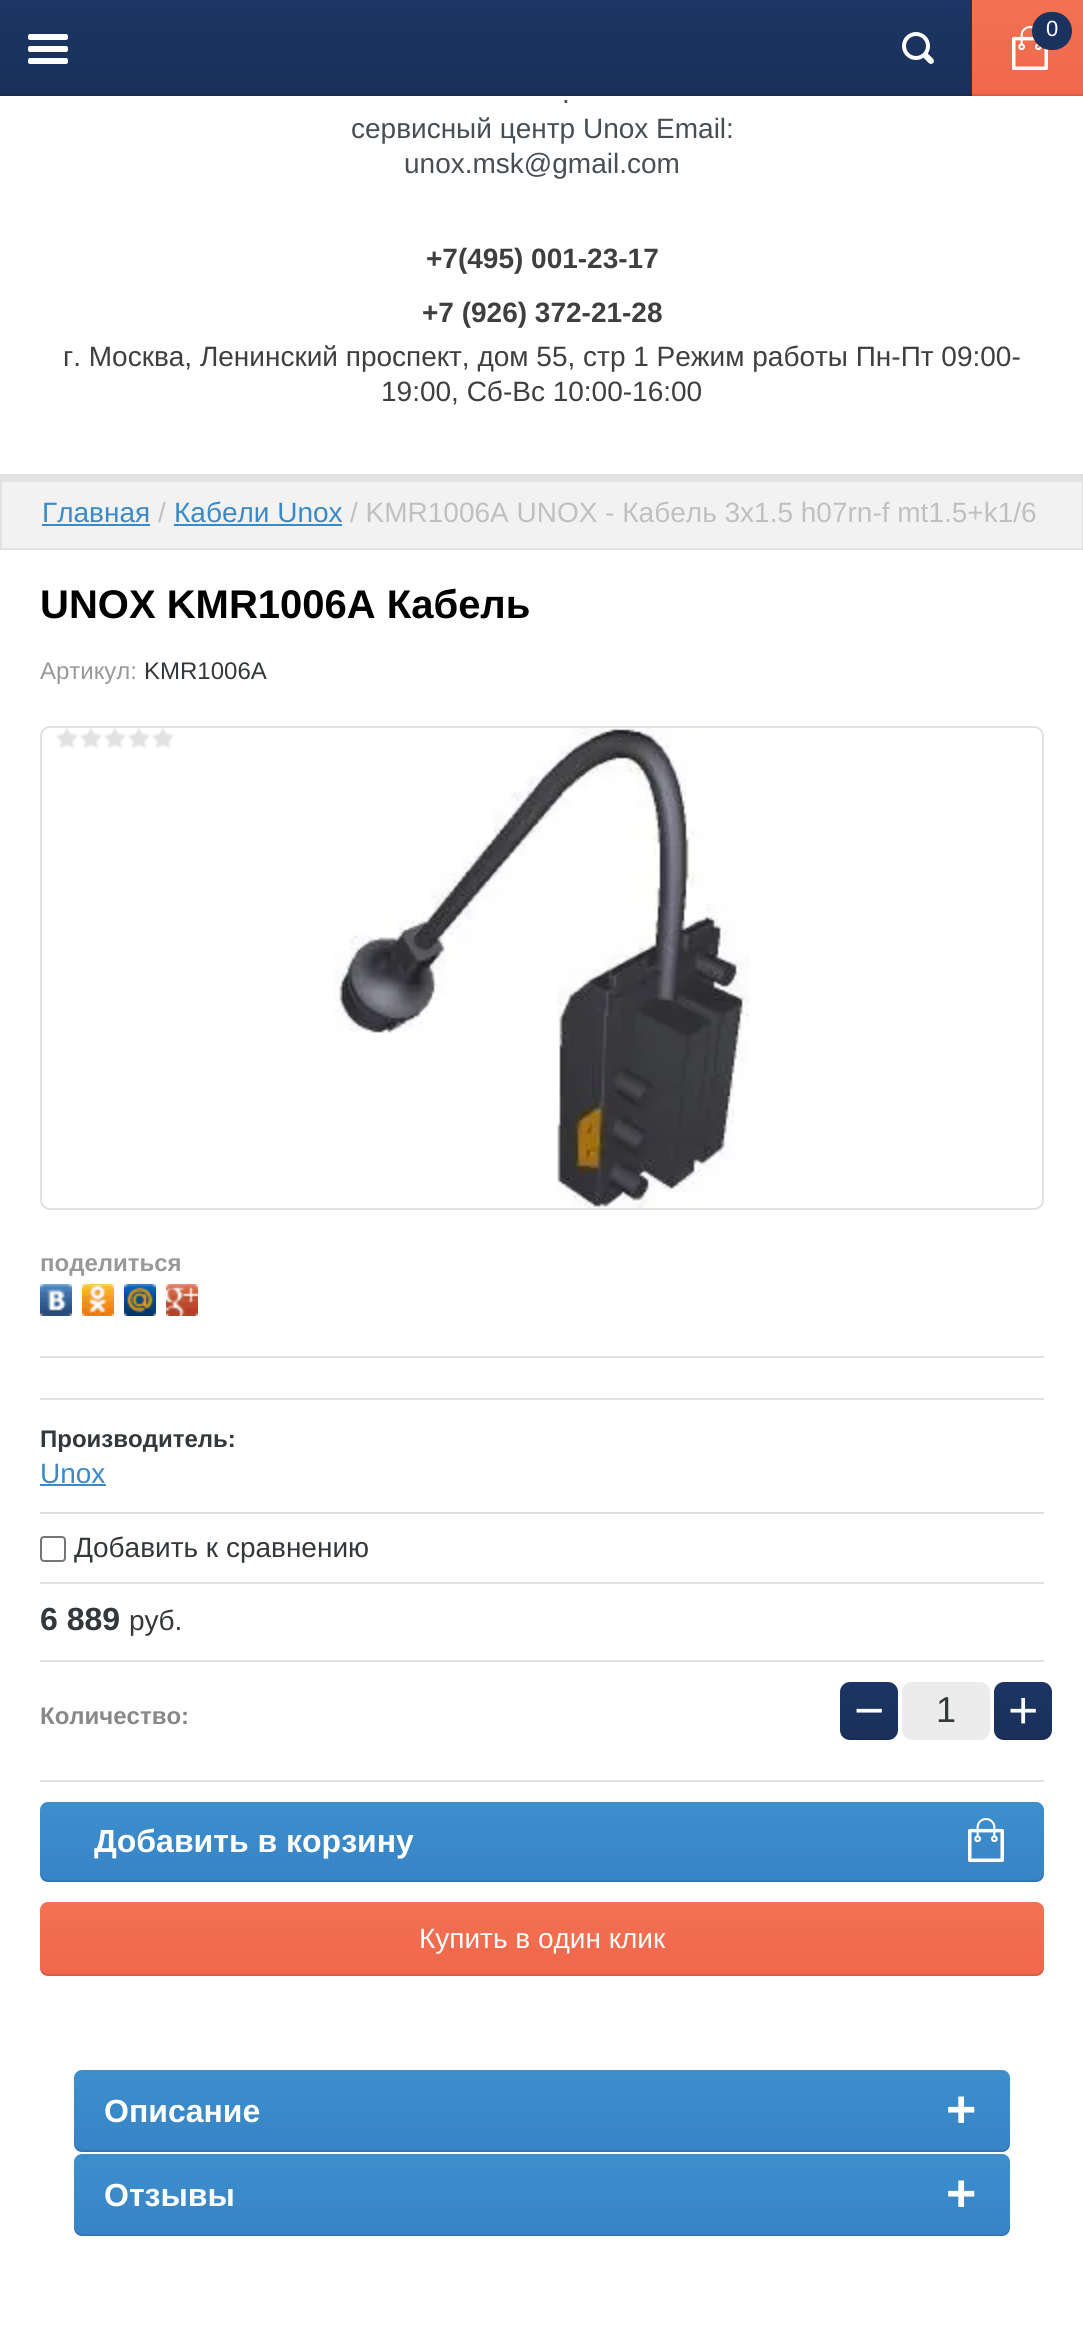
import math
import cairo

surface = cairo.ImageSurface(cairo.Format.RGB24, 1083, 2350)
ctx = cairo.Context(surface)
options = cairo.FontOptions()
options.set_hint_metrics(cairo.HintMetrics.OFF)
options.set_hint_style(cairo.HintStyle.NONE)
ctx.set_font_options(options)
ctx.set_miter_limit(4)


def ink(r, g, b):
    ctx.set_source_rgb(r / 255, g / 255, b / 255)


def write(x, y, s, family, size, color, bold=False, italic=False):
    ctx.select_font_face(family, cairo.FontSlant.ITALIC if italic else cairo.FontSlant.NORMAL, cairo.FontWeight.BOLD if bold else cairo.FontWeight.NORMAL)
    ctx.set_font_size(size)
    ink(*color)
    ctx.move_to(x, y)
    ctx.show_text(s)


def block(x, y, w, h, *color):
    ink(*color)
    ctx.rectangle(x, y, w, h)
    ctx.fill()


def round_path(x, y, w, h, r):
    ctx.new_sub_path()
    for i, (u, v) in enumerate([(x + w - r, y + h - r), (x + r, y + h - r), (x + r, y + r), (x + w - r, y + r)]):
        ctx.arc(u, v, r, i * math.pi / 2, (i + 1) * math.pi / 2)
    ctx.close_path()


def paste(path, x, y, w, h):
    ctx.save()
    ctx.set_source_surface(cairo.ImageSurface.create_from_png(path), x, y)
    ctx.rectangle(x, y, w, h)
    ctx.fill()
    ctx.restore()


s1 = dict(family="Liberation Sans", size=22, color=(255, 255, 255))
s2 = dict(family="Liberation Sans", size=28, color=(71, 79, 84))
s3 = dict(family="Liberation Sans", size=28, color=(63, 63, 63), bold=True)
s4 = dict(family="Liberation Sans", size=28, color=(63, 63, 63))
s5 = dict(family="Liberation Sans", size=28, color=(58, 137, 201))
s6 = dict(family="Liberation Sans", size=28, color=(192, 192, 192))
s7 = dict(family="Liberation Sans", size=40, color=(0, 0, 0), bold=True)
s8 = dict(family="Liberation Sans", size=24, color=(153, 153, 153))
s9 = dict(family="Liberation Sans", size=24, color=(52, 56, 58))
s10 = dict(family="Liberation Sans", size=24, color=(153, 153, 153), bold=True)
s11 = dict(family="Liberation Sans", size=24, color=(52, 56, 58), bold=True)
s12 = dict(family="Liberation Sans", size=28, color=(52, 56, 58))
s13 = dict(family="Liberation Sans", size=32, color=(52, 56, 58), bold=True)
s14 = dict(family="Liberation Sans", size=24, color=(136, 136, 136), bold=True)
s15 = dict(family="Liberation Sans", size=52, color=(255, 255, 255))
s16 = dict(family="Liberation Sans", size=36, color=(52, 56, 58))
s17 = dict(family="Liberation Sans", size=32, color=(255, 255, 255), bold=True)
s18 = dict(family="Liberation Sans", size=28, color=(255, 255, 255))
s19 = dict(family="Liberation Sans", size=52, color=(255, 255, 255), bold=True)

ink(255, 255, 255)
ctx.paint()
gradient = cairo.LinearGradient(542, 96, 542, 0)
gradient.add_color_stop_rgba(0, 0.102, 0.188, 0.353, 1)
gradient.add_color_stop_rgba(1, 0.11, 0.208, 0.392, 1)
ctx.set_source(gradient)
ctx.rectangle(0, 0, 972, 94)
ctx.fill()
block(0, 94, 972, 2, 23, 43, 81)
gradient = cairo.LinearGradient(1028, 96, 1028, 0)
gradient.add_color_stop_rgba(0, 0.945, 0.404, 0.294, 1)
gradient.add_color_stop_rgba(1, 0.953, 0.443, 0.325, 1)
ctx.set_source(gradient)
ctx.rectangle(972, 0, 111, 94)
ctx.fill()
block(972, 94, 111, 2, 217, 93, 68)
paste("pic1.png", 1012, 26, 36, 44)
ink(27, 50, 95)
round_path(1032, 12, 40, 38, 19)
ctx.fill()
write(1046, 36, "0", **s1)
paste("pic2.png", 902, 32, 32, 32)
paste("pic3.png", 28, 34, 40, 30)
write(562, 103, ".", **s2)
write(351, 138, "сервисный центр Unox Email:", **s2)
write(404, 173, "unox.msk@gmail.com", **s2)
write(426, 268, "+7(495) 001-23-17", **s3)
write(422, 322, "+7 (926) 372-21-28", **s3)
write(63, 366, "г. Москва, Ленинский проспект, дом 55, стр 1 Режим работы Пн-Пт 09:00-", **s4)
write(381, 401, "19:00, Сб-Вс 10:00-16:00", **s4)
block(2, 482, 1080, 66, 242, 242, 242)
block(2, 476, 1080, 6, 227, 227, 227)
ctx.rectangle(1, 475, 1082, 74)
ink(225, 225, 225)
ctx.stroke()
write(42, 522, "Главная", **s5)
block(42, 524, 108, 2, 58, 137, 201)
write(158, 522, "/", **s6)
write(174, 522, "Кабели Unox", **s5)
block(174, 524, 168, 2, 58, 137, 201)
write(350, 522, "/ KMR1006A UNOX - Кабель 3x1.5 h07rn-f mt1.5+k1/6", **s6)
write(40, 618, "UNOX KMR1006A Кабель", **s7)
write(40, 679, "Артикул:", **s8)
write(144, 679, "KMR1006A", **s9)
block(40, 1356, 1004, 2, 225, 225, 225)
round_path(41, 727, 1002, 482, 9)
ctx.stroke()
paste("pic4.png", 56, 728, 118, 20)
paste("pic5.png", 334, 728, 416, 480)
write(40, 1271, "поделиться", **s10)
paste("pic6.png", 40, 1284, 32, 32)
paste("pic7.png", 82, 1284, 32, 32)
paste("pic8.png", 124, 1284, 32, 32)
paste("pic9.png", 166, 1284, 32, 32)
block(40, 1398, 1004, 2, 225, 225, 225)
write(40, 1447, "Производитель:", **s11)
write(40, 1483, "Unox", **s5)
block(40, 1484, 66, 2, 58, 137, 201)
block(40, 1512, 1004, 2, 222, 222, 222)
round_path(41, 1537, 24, 24, 3)
ink(118, 118, 118)
ctx.stroke()
write(74, 1557, "Добавить к сравнению", **s12)
block(40, 1582, 1004, 2, 225, 225, 225)
write(40, 1630, "6 889", **s13)
write(129, 1630, "руб.", **s12)
block(40, 1660, 1004, 2, 225, 225, 225)
block(40, 1780, 1004, 2, 225, 225, 225)
write(40, 1724, "Количество:", **s14)
gradient = cairo.LinearGradient(869, 1740, 869, 1682)
gradient.add_color_stop_rgba(0, 0.102, 0.188, 0.353, 1)
gradient.add_color_stop_rgba(1, 0.11, 0.208, 0.392, 1)
ctx.set_source(gradient)
round_path(840, 1682, 58, 58, 10)
ctx.fill()
ctx.set_source_rgba(0, 0, 0, 0.1)
ctx.new_path()
ctx.move_to(840, 1728)
ctx.curve_to(840, 1740, 847, 1740, 856, 1740)
ctx.line_to(882, 1740)
ctx.curve_to(891, 1740, 898, 1740, 898, 1728)
ctx.curve_to(898, 1734, 894, 1738, 888, 1738)
ctx.line_to(850, 1738)
ctx.curve_to(844, 1738, 840, 1734, 840, 1728)
ctx.close_path()
ctx.fill()
write(854, 1728, "−", **s15)
ink(236, 236, 236)
round_path(902, 1682, 88, 58, 10)
ctx.fill()
write(936, 1722, "1", **s16)
gradient = cairo.LinearGradient(1023, 1740, 1023, 1682)
gradient.add_color_stop_rgba(0, 0.102, 0.188, 0.353, 1)
gradient.add_color_stop_rgba(1, 0.11, 0.208, 0.392, 1)
ctx.set_source(gradient)
round_path(994, 1682, 58, 58, 10)
ctx.fill()
ctx.set_source_rgba(0, 0, 0, 0.1)
ctx.new_path()
ctx.move_to(994, 1728)
ctx.curve_to(994, 1740, 1001, 1740, 1010, 1740)
ctx.line_to(1036, 1740)
ctx.curve_to(1045, 1740, 1052, 1740, 1052, 1728)
ctx.curve_to(1052, 1734, 1048, 1738, 1042, 1738)
ctx.line_to(1004, 1738)
ctx.curve_to(998, 1738, 994, 1734, 994, 1728)
ctx.close_path()
ctx.fill()
write(1008, 1728, "+", **s15)
gradient = cairo.LinearGradient(542, 1882, 542, 1802)
gradient.add_color_stop_rgba(0, 0.216, 0.514, 0.776, 1)
gradient.add_color_stop_rgba(1, 0.239, 0.561, 0.8, 1)
ctx.set_source(gradient)
round_path(40, 1802, 1004, 80, 8)
ctx.fill()
ctx.set_source_rgba(0, 0, 0, 0.1)
ctx.new_path()
ctx.move_to(40, 1872)
ctx.curve_to(40, 1877, 42, 1882, 48, 1882)
ctx.line_to(1036, 1882)
ctx.curve_to(1042, 1882, 1044, 1877, 1044, 1872)
ctx.curve_to(1044, 1876, 1040, 1880, 1036, 1880)
ctx.line_to(48, 1880)
ctx.curve_to(44, 1880, 40, 1876, 40, 1872)
ctx.close_path()
ctx.fill()
write(94, 1852, "Добавить в корзину", **s17)
paste("pic10.png", 968, 1818, 36, 44)
gradient = cairo.LinearGradient(542, 1976, 542, 1902)
gradient.add_color_stop_rgba(0, 0.945, 0.404, 0.294, 1)
gradient.add_color_stop_rgba(1, 0.953, 0.443, 0.325, 1)
ctx.set_source(gradient)
round_path(40, 1902, 1004, 74, 8)
ctx.fill()
ctx.set_source_rgba(0, 0, 0, 0.1)
ctx.new_path()
ctx.move_to(40, 1966)
ctx.curve_to(40, 1971, 42, 1976, 48, 1976)
ctx.line_to(1036, 1976)
ctx.curve_to(1042, 1976, 1044, 1971, 1044, 1966)
ctx.curve_to(1044, 1970, 1040, 1974, 1036, 1974)
ctx.line_to(48, 1974)
ctx.curve_to(44, 1974, 40, 1970, 40, 1966)
ctx.close_path()
ctx.fill()
write(419, 1948, "Купить в один клик", **s18)
gradient = cairo.LinearGradient(542, 2152, 542, 2070)
gradient.add_color_stop_rgba(0, 0.216, 0.514, 0.776, 1)
gradient.add_color_stop_rgba(1, 0.239, 0.561, 0.8, 1)
ctx.set_source(gradient)
round_path(74, 2070, 936, 82, 8)
ctx.fill()
ctx.set_source_rgba(0, 0, 0, 0.1)
ctx.new_path()
ctx.move_to(74, 2142)
ctx.curve_to(74, 2147, 76, 2152, 82, 2152)
ctx.line_to(1002, 2152)
ctx.curve_to(1008, 2152, 1010, 2147, 1010, 2142)
ctx.curve_to(1010, 2146, 1006, 2150, 1002, 2150)
ctx.line_to(82, 2150)
ctx.curve_to(78, 2150, 74, 2146, 74, 2142)
ctx.close_path()
ctx.fill()
write(104, 2122, "Описание", **s17)
write(946, 2127, "+", **s19)
gradient = cairo.LinearGradient(542, 2236, 542, 2154)
gradient.add_color_stop_rgba(0, 0.216, 0.514, 0.776, 1)
gradient.add_color_stop_rgba(1, 0.239, 0.561, 0.8, 1)
ctx.set_source(gradient)
round_path(74, 2154, 936, 82, 8)
ctx.fill()
ctx.set_source_rgba(0, 0, 0, 0.1)
ctx.new_path()
ctx.move_to(74, 2226)
ctx.curve_to(74, 2231, 76, 2236, 82, 2236)
ctx.line_to(1002, 2236)
ctx.curve_to(1008, 2236, 1010, 2231, 1010, 2226)
ctx.curve_to(1010, 2230, 1006, 2234, 1002, 2234)
ctx.line_to(82, 2234)
ctx.curve_to(78, 2234, 74, 2230, 74, 2226)
ctx.close_path()
ctx.fill()
write(104, 2206, "Отзывы", **s17)
write(946, 2211, "+", **s19)
surface.write_to_png("screenshot.png")
